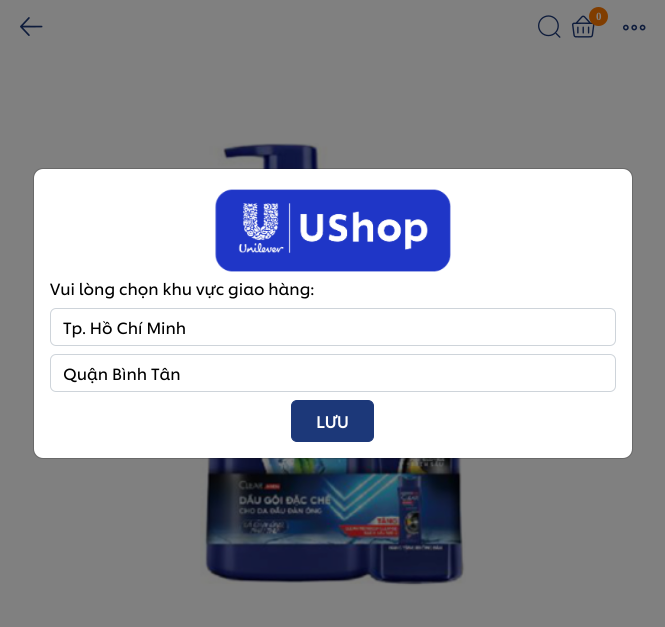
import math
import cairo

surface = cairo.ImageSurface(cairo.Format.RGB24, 665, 627)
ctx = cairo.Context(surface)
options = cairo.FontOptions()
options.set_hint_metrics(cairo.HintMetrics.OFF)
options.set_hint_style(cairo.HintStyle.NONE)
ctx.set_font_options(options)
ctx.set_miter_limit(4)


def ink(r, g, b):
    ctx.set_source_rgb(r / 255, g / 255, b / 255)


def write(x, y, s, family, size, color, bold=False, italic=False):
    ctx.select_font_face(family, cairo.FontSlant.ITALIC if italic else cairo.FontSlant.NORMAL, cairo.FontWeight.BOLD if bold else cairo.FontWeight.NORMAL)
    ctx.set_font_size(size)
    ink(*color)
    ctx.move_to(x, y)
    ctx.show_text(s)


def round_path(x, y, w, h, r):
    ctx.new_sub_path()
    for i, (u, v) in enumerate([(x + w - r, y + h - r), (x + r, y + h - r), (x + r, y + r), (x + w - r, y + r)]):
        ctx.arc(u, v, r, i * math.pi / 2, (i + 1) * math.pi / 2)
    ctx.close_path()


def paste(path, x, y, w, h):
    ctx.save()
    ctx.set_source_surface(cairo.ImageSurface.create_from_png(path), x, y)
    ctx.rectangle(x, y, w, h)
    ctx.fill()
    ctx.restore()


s1 = dict(family="Liberation Serif", size=11, color=(128, 128, 128), bold=True)
s2 = dict(family="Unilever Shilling", size=16, color=(0, 0, 0))
s3 = dict(family="Unilever Shilling", size=16, color=(255, 255, 255), bold=True)

ink(128, 128, 128)
ctx.paint()
paste("pic1.png", 20, 17, 23, 19)
paste("pic2.png", 538, 15, 23, 23)
paste("pic3.png", 572, 15, 23, 23)
ink(128, 61, 0)
ctx.arc(598.5, 16.5, 9.5, 0, 2 * math.pi)
ctx.fill()
write(596, 20, "0", **s1)
paste("pic4.png", 623, 24, 23, 7)
paste("pic5.png", 200, 143, 266, 443)
ink(255, 255, 255)
round_path(34, 169, 598, 289, 9)
ctx.fill()
round_path(33.5, 168.5, 599, 290, 9.5)
ctx.set_source_rgba(0, 0, 0, 0.18)
ctx.set_line_width(1)
ctx.stroke()
paste("pic6.png", 215, 189, 236, 83)
write(50, 295, "Vui lòng chọn khu vực giao hàng:", **s2)
round_path(50.5, 308.5, 565, 37, 5.5)
ink(206, 212, 218)
ctx.stroke()
write(63, 334, "Tp. Hồ Chí Minh", **s2)
round_path(50.5, 354.5, 565, 37, 5.5)
ink(206, 212, 218)
ctx.stroke()
write(63, 380, "Quận Bình Tân", **s2)
ink(28, 56, 121)
round_path(291.5, 400.5, 82, 41, 5.5)
ctx.fill_preserve()
ctx.stroke()
write(316, 428, "LƯU", **s3)
surface.write_to_png("screenshot.png")
